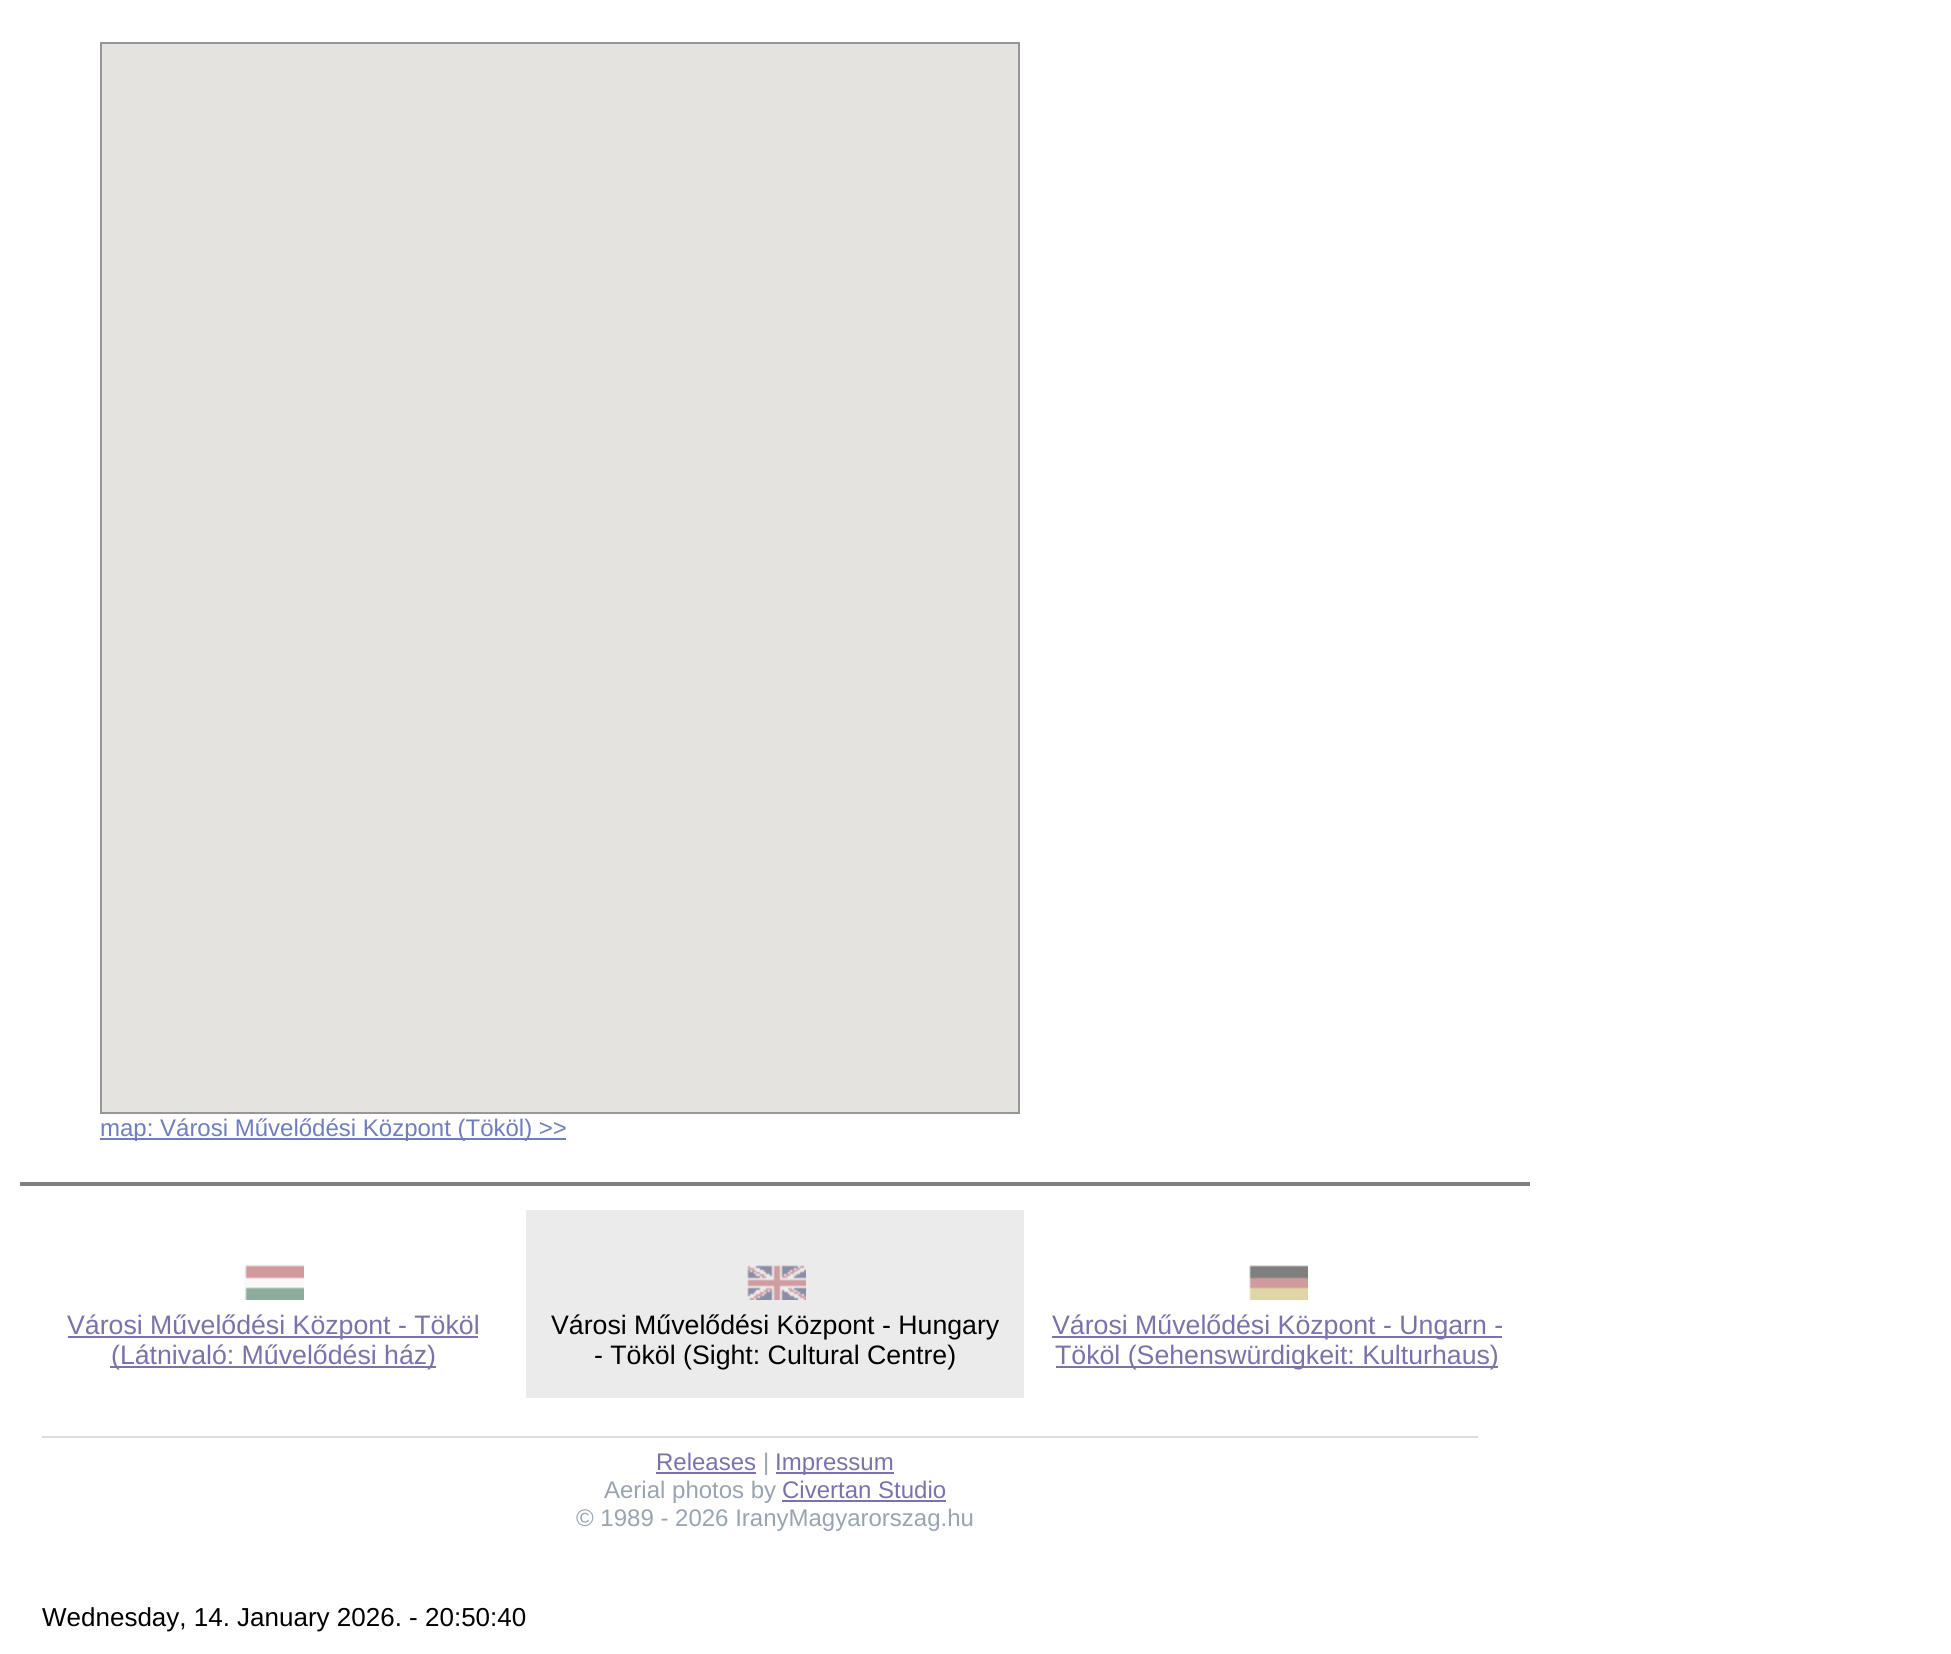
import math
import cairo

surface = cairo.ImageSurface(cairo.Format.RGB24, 1951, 1654)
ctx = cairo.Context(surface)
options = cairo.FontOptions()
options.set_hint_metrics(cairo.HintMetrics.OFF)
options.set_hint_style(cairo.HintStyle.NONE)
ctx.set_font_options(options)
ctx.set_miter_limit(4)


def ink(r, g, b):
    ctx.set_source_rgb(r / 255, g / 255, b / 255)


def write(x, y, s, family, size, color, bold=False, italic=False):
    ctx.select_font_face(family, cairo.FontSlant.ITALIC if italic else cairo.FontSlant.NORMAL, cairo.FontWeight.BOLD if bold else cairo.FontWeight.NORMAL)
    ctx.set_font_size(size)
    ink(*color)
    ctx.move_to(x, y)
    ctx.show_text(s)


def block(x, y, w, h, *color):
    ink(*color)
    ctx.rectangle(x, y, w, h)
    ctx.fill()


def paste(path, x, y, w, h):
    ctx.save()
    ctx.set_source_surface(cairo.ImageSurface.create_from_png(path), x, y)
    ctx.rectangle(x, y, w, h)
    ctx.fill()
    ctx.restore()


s1 = dict(family="Liberation Sans", size=24, color=(112, 126, 189))
s2 = dict(family="Liberation Sans", size=26.7, color=(123, 114, 172))
s3 = dict(family="Liberation Sans", size=26.7, color=(0, 0, 0))
s4 = dict(family="Liberation Sans", size=24, color=(123, 114, 172))
s5 = dict(family="Liberation Sans", size=24, color=(153, 164, 177))
s6 = dict(family="Liberation Sans", size=26, color=(0, 0, 0))

ink(255, 255, 255)
ctx.paint()
ctx.rectangle(101, 43, 918, 1070)
ink(151, 151, 151)
ctx.stroke()
block(102, 44, 916, 1068, 229, 227, 223)
block(100, 1138, 466, 2, 112, 126, 189)
write(100, 1136, "map: Városi Művelődési Központ (Tököl) >>", **s1)
block(20, 1182, 1510, 4, 128, 128, 128)
paste("pic1.png", 244, 1264, 60, 36)
block(68, 1336, 410, 2, 123, 114, 172)
write(67, 1334, "Városi Művelődési Központ - Tököl", **s2)
block(110, 1366, 326, 2, 123, 114, 172)
write(111, 1364, "(Látnivaló: Művelődési ház)", **s2)
block(526, 1210, 498, 188, 235, 235, 235)
paste("pic2.png", 747, 1265, 59, 35)
write(551, 1334, "Városi Művelődési Központ - Hungary", **s3)
write(594, 1364, "- Tököl (Sight: Cultural Centre)", **s3)
paste("pic3.png", 1249, 1265, 59, 35)
block(1052, 1336, 450, 2, 123, 114, 172)
write(1052, 1334, "Városi Művelődési Központ - Ungarn -", **s2)
block(1056, 1366, 442, 2, 123, 114, 172)
write(1055, 1364, "Tököl (Sehenswürdigkeit: Kulturhaus)", **s2)
block(42, 1436, 1436, 2, 221, 221, 221)
write(656, 1470, "Releases", **s4)
block(656, 1472, 100, 2, 123, 114, 172)
write(763, 1470, "|", **s5)
block(776, 1472, 118, 2, 123, 114, 172)
write(775, 1470, "Impressum", **s4)
write(604, 1498, "Aerial photos by", **s5)
write(782, 1498, "Civertan Studio", **s4)
block(782, 1500, 164, 2, 123, 114, 172)
write(576, 1526, "© 1989 - 2026 IranyMagyarorszag.hu", **s5)
write(42, 1626, "Wednesday, 14. January 2026. - 20:50:40", **s6)
surface.write_to_png("screenshot.png")
